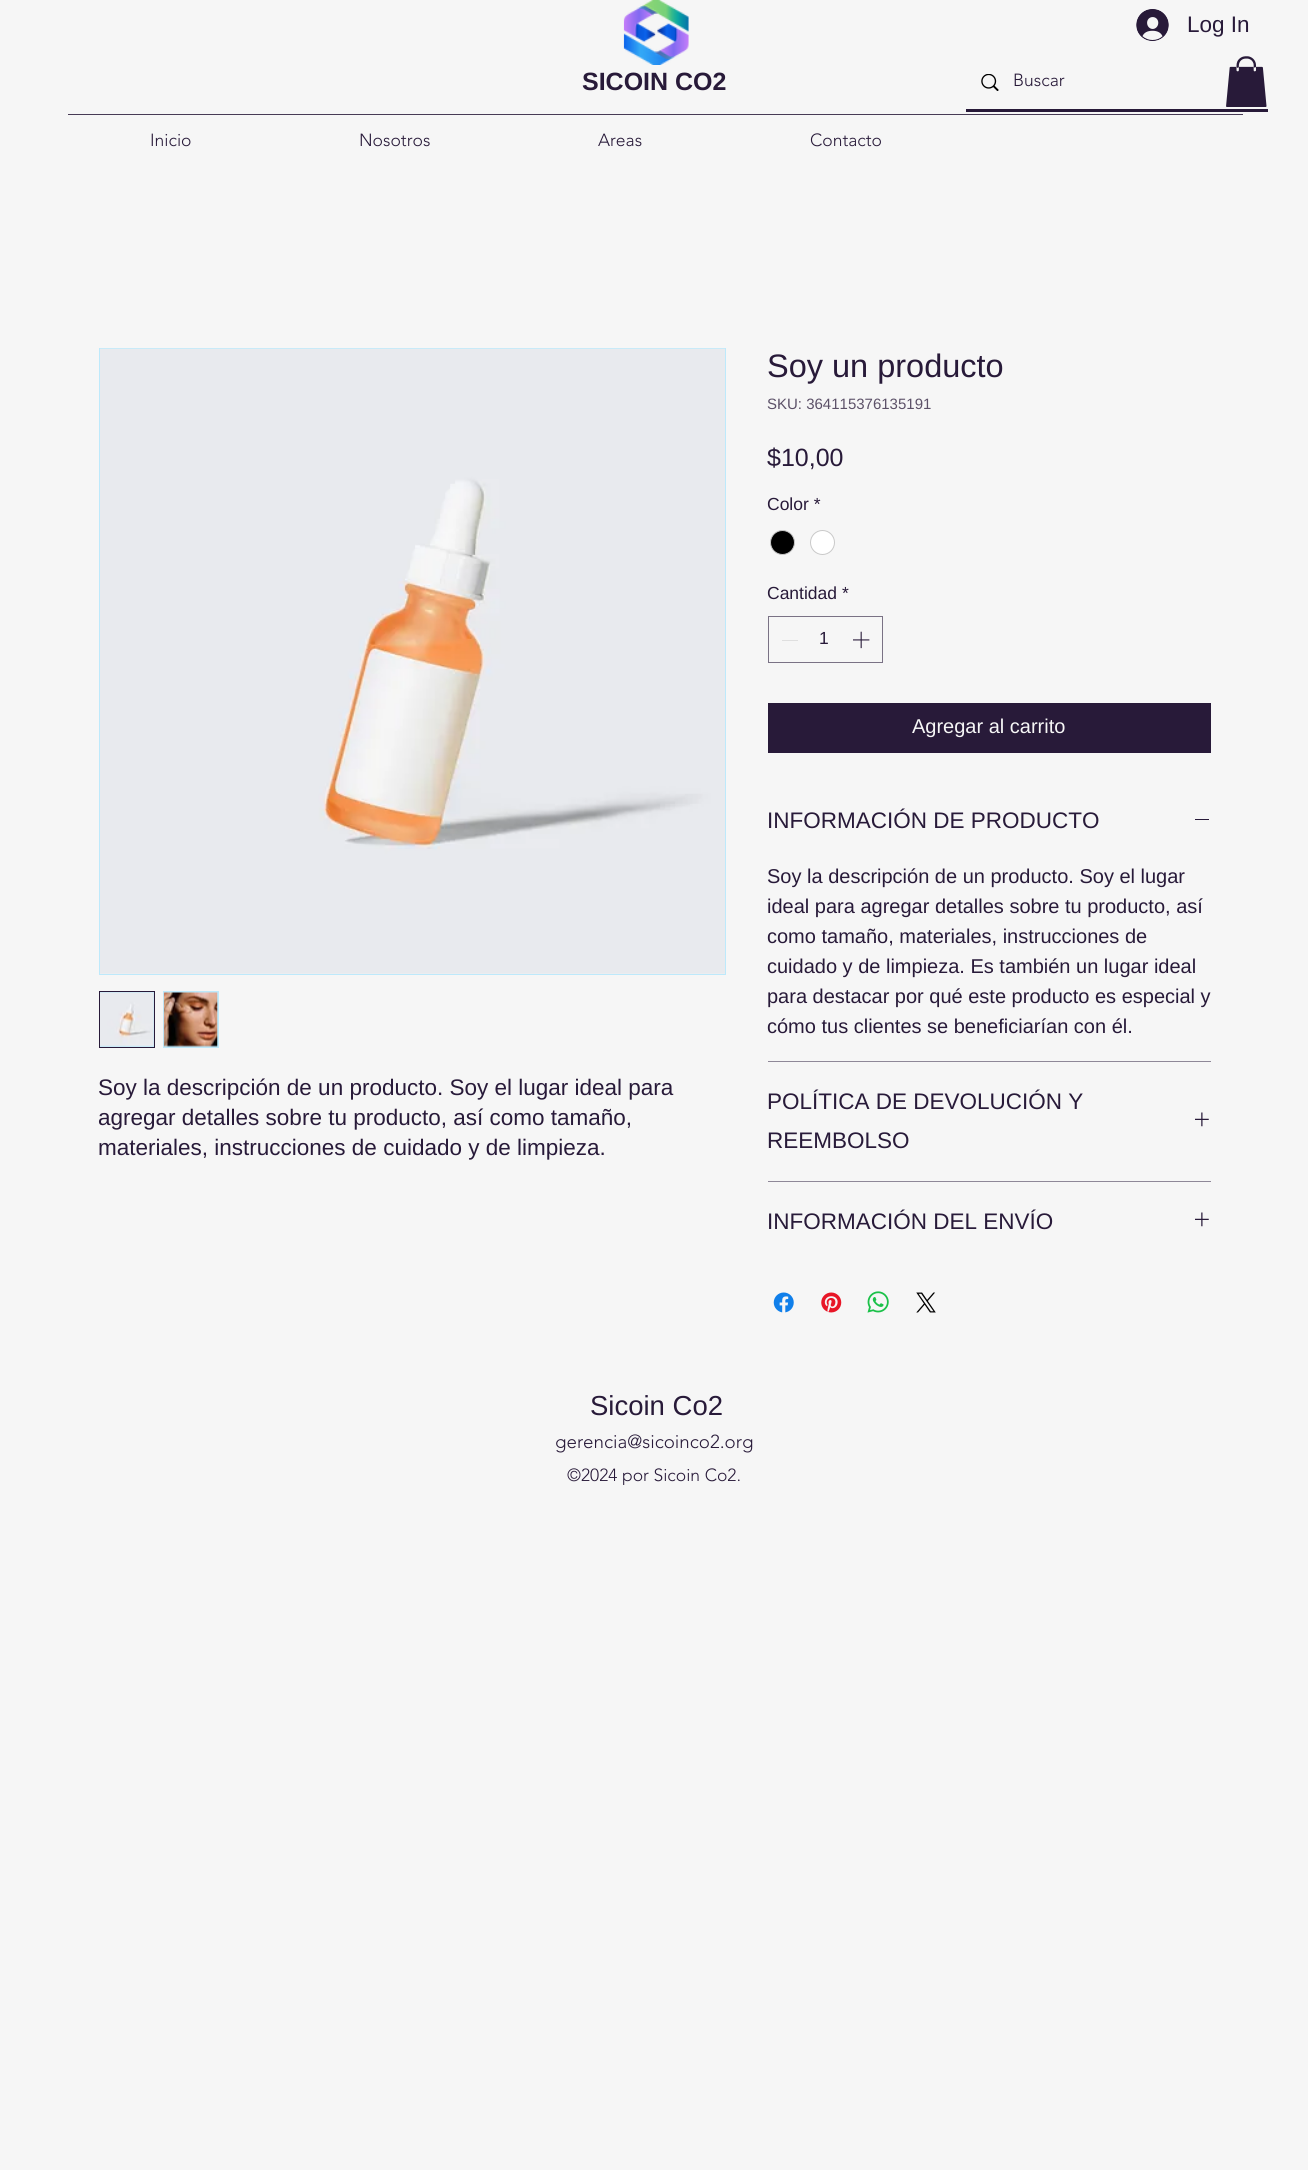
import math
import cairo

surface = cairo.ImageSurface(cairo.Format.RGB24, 1308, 2170)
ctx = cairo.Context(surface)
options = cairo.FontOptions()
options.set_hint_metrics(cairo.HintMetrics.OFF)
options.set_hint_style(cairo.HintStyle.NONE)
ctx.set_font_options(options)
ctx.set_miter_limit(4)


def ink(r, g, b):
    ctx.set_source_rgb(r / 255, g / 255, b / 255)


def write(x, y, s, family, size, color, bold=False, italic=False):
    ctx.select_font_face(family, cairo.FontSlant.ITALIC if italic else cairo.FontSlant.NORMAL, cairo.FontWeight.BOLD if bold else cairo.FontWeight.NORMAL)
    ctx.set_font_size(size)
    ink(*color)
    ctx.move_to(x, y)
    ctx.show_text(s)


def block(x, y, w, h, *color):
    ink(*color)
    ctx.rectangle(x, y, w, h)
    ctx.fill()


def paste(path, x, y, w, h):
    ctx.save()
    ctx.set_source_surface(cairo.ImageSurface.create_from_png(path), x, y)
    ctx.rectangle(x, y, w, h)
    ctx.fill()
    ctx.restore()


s1 = dict(family="Liberation Sans", size=22.5, color=(40, 26, 57))
s2 = dict(family="Liberation Sans", size=25, color=(40, 26, 57), bold=True)
s3 = dict(family="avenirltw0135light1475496 Light", size=17.5, color=(40, 26, 57))
s4 = dict(family="Liberation Sans", size=32.5, color=(40, 26, 57))
s5 = dict(family="Liberation Sans", size=15, color=(92, 81, 104))
s6 = dict(family="Liberation Sans", size=25, color=(40, 26, 57))
s7 = dict(family="Liberation Sans", size=17.5, color=(40, 26, 57))
s8 = dict(family="Liberation Sans", size=20, color=(246, 246, 246))
s9 = dict(family="Liberation Sans", size=20, color=(40, 26, 57))
s10 = dict(family="Liberation Sans", size=27.5, color=(40, 26, 57))
s11 = dict(family="avenirltw0135light1475496 Light", size=18.75, color=(40, 26, 57))

ink(246, 246, 246)
ctx.paint()
paste("pic1.png", 623, 0, 66, 65)
paste("pic2.png", 1136, 9, 33, 32)
write(1187, 32, "Log In", **s1)
write(582, 90, "SICOIN CO2", **s2)
block(966, 109, 302, 3, 40, 26, 57)
paste("pic3.png", 981, 74, 18, 17)
write(1013, 86, "Buscar", **s3)
paste("pic4.png", 1226, 56, 41, 51)
block(68, 114, 1175, 1, 71, 59, 85)
write(150, 146, "Inicio", **s3)
write(359, 146, "Nosotros", **s3)
write(598, 146, "Areas", **s3)
write(810, 146, "Contacto", **s3)
ctx.rectangle(99.5, 348.5, 626, 626)
ink(189, 233, 251)
ctx.set_line_width(1)
ctx.stroke()
paste("pic5.png", 100, 348, 625, 626)
ctx.rectangle(99.5, 991.5, 55, 56)
ctx.fill_preserve()
ink(40, 26, 57)
ctx.stroke()
paste("pic6.png", 100, 992, 54, 55)
block(163, 991, 56, 57, 189, 233, 251)
paste("pic7.png", 163, 992, 55, 55)
write(98, 1095, "Soy la descripción de un producto. Soy el lugar ideal para", **s1)
write(98, 1125, "agregar detalles sobre tu producto, así como tamaño,", **s1)
write(98, 1155, "materiales, instrucciones de cuidado y de limpieza.", **s1)
write(767, 377, "Soy un producto", **s4)
write(767, 409, "SKU: 364115376135191", **s5)
write(767, 466, "$10,00", **s6)
write(767, 510, "Color *", **s7)
ink(0, 0, 0)
ctx.new_path()
ctx.arc(782.5, 542.5, 12, 0, 2 * math.pi)
ctx.fill_preserve()
ink(201, 201, 201)
ctx.stroke()
ink(255, 255, 255)
ctx.arc(822.5, 542.5, 12, 0, 2 * math.pi)
ctx.fill_preserve()
ink(201, 201, 201)
ctx.stroke()
write(767, 599, "Cantidad *", **s7)
ctx.rectangle(768.5, 616.5, 114, 46)
ink(122, 114, 133)
ctx.stroke()
block(782, 640, 16, 1, 223, 223, 223)
write(819, 644, "1", **s7)
paste("pic8.png", 853, 631, 17, 18)
block(768, 703, 443, 50, 40, 26, 57)
write(912, 733, "Agregar al carrito", **s8)
block(768, 1061, 443, 1, 143, 136, 152)
write(767, 828, "INFORMACIÓN DE PRODUCTO", **s1)
block(1195, 819, 14, 1, 40, 26, 57)
write(767, 883, "Soy la descripción de un producto. Soy el lugar", **s9)
write(767, 913, "ideal para agregar detalles sobre tu producto, así", **s9)
write(767, 943, "como tamaño, materiales, instrucciones de", **s9)
write(767, 973, "cuidado y de limpieza. Es también un lugar ideal", **s9)
write(767, 1003, "para destacar por qué este producto es especial y", **s9)
write(767, 1033, "cómo tus clientes se beneficiarían con él.", **s9)
block(768, 1181, 443, 1, 143, 136, 152)
write(767, 1109, "POLÍTICA DE DEVOLUCIÓN Y", **s1)
write(767, 1148, "REEMBOLSO", **s1)
paste("pic9.png", 1195, 1112, 14, 15)
write(767, 1229, "INFORMACIÓN DEL ENVÍO", **s1)
paste("pic9.png", 1195, 1212, 14, 15)
paste("pic10.png", 773, 1292, 21, 21)
paste("pic11.png", 821, 1292, 21, 21)
paste("pic12.png", 867, 1291, 22, 22)
paste("pic13.png", 916, 1292, 20, 21)
write(590, 1415, "Sicoin Co2", **s10)
write(555, 1448, "gerencia@sicoinco2.org", **s11)
write(567, 1481, "©2024 por Sicoin Co2.", **s3)
surface.write_to_png("screenshot.png")
